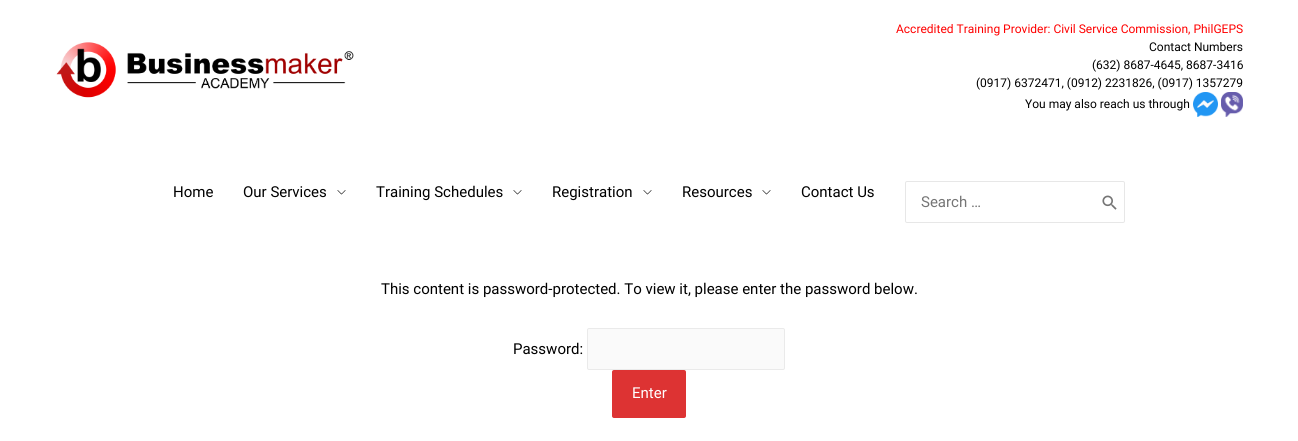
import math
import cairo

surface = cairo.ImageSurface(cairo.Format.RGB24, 1298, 441)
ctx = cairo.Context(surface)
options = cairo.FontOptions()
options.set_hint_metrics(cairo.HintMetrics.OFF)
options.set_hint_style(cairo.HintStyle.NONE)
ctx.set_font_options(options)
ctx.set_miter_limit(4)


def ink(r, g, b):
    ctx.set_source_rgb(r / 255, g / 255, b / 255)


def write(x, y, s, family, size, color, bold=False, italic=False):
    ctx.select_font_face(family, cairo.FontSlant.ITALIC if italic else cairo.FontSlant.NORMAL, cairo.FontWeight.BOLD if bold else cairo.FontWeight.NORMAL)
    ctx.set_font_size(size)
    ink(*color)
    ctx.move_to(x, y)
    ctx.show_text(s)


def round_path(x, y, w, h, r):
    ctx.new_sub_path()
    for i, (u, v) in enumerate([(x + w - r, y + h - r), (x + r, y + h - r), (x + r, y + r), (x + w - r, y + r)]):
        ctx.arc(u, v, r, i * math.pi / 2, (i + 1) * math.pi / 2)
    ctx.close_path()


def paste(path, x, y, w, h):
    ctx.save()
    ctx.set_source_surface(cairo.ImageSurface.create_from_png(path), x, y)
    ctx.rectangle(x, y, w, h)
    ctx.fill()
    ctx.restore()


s1 = dict(family="Roboto", size=12, color=(255, 0, 0))
s2 = dict(family="Roboto", size=12, color=(0, 0, 0))
s3 = dict(family="Roboto", size=15, color=(0, 0, 0))
s4 = dict(family="Roboto", size=15, color=(117, 117, 117))
s5 = dict(family="Roboto", size=15, color=(255, 255, 255))

ink(255, 255, 255)
ctx.paint()
paste("pic1.png", 56, 42, 298, 56)
write(896, 33, "Accredited Training Provider: Civil Service Commission, PhilGEPS", **s1)
write(1149, 51, "Contact Numbers", **s2)
write(1092, 69, "(632) 8687-4645, 8687-3416", **s2)
write(976, 87, "(0917) 6372471, (0912) 2231826, (0917) 1357279", **s2)
write(1025, 108, "You may also reach us through", **s2)
paste("pic2.png", 1193, 92, 25, 25)
paste("pic3.png", 1221, 92, 22, 25)
write(173, 197, "Home", **s3)
write(243, 197, "Our Services", **s3)
paste("pic4.png", 337, 190, 9, 5)
write(376, 197, "Training Schedules", **s3)
paste("pic4.png", 513, 190, 9, 5)
write(552, 197, "Registration", **s3)
paste("pic4.png", 643, 190, 9, 5)
write(682, 197, "Resources", **s3)
paste("pic4.png", 762, 190, 9, 5)
write(801, 197, "Contact Us", **s3)
round_path(905.5, 181.5, 219, 41, 1.5)
ink(231, 231, 231)
ctx.set_line_width(1)
ctx.stroke()
write(921, 207, "Search …", **s4)
paste("pic5.png", 1102, 195, 15, 15)
write(381, 294, "This content is password-protected. To view it, please enter the password below.", **s3)
write(513, 354, "Password:", **s3)
ink(250, 250, 250)
round_path(587.5, 328.5, 197, 41, 1.5)
ctx.fill_preserve()
ink(234, 234, 234)
ctx.stroke()
ink(221, 51, 51)
round_path(612, 370, 74, 48, 2)
ctx.fill()
write(632, 398, "Enter", **s5)
surface.write_to_png("screenshot.png")
